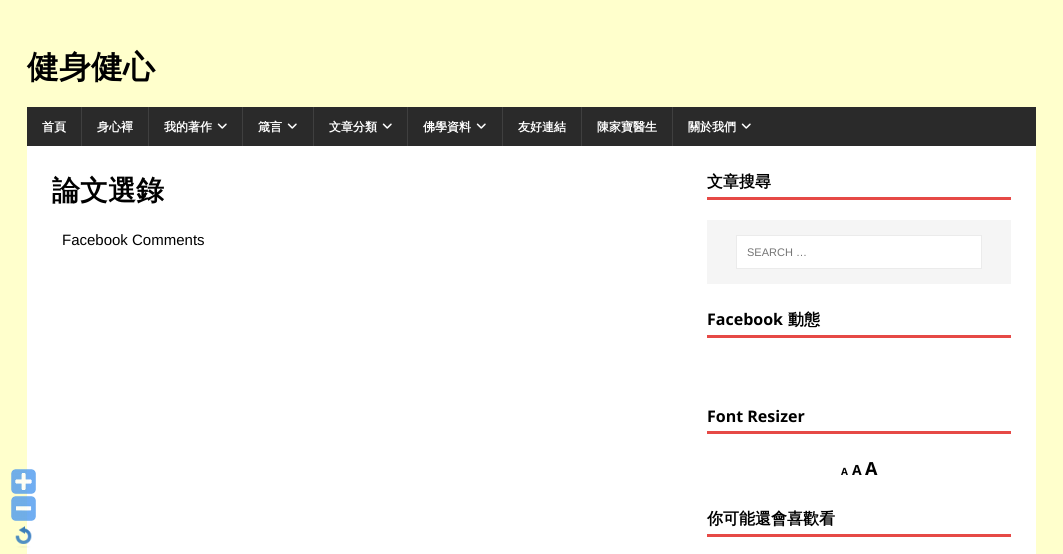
import math
import cairo

surface = cairo.ImageSurface(cairo.Format.RGB24, 1063, 554)
ctx = cairo.Context(surface)
options = cairo.FontOptions()
options.set_hint_metrics(cairo.HintMetrics.OFF)
options.set_hint_style(cairo.HintStyle.NONE)
ctx.set_font_options(options)
ctx.set_miter_limit(4)


def ink(r, g, b):
    ctx.set_source_rgb(r / 255, g / 255, b / 255)


def write(x, y, s, family, size, color, bold=False, italic=False):
    ctx.select_font_face(family, cairo.FontSlant.ITALIC if italic else cairo.FontSlant.NORMAL, cairo.FontWeight.BOLD if bold else cairo.FontWeight.NORMAL)
    ctx.set_font_size(size)
    ink(*color)
    ctx.move_to(x, y)
    ctx.show_text(s)


def block(x, y, w, h, *color):
    ink(*color)
    ctx.rectangle(x, y, w, h)
    ctx.fill()


def paste(path, x, y, w, h):
    ctx.save()
    ctx.set_source_surface(cairo.ImageSurface.create_from_png(path), x, y)
    ctx.rectangle(x, y, w, h)
    ctx.fill()
    ctx.restore()


s1 = dict(family="WenQuanYi Zen Hei", size=32, color=(0, 0, 0), bold=True)
s2 = dict(family="WenQuanYi Zen Hei", size=12, color=(255, 255, 255), bold=True)
s3 = dict(family="WenQuanYi Zen Hei", size=28, color=(0, 0, 0), bold=True)
s4 = dict(family="Liberation Sans", size=15, color=(0, 0, 0))
s5 = dict(family="WenQuanYi Zen Hei", size=16, color=(0, 0, 0), bold=True)
s6 = dict(family="Liberation Sans", size=11, color=(117, 117, 117))
s7 = dict(family="Open Sans", size=16, color=(0, 0, 0), bold=True)
s8 = dict(family="Open Sans", size=10, color=(0, 0, 0), bold=True)
s9 = dict(family="Open Sans", size=14, color=(0, 0, 0), bold=True)
s10 = dict(family="Open Sans", size=18, color=(0, 0, 0), bold=True)

ink(255, 255, 204)
ctx.paint()
block(27, 146, 1009, 408, 255, 255, 255)
paste("pic1.png", 11, 469, 25, 25)
paste("pic2.png", 11, 496, 25, 25)
paste("pic3.png", 15, 526, 17, 22)
write(27, 78, "健身健心", **s1)
block(27, 107, 1009, 39, 42, 42, 42)
write(42, 131, "首頁", **s2)
block(81, 107, 1, 39, 63, 63, 63)
write(97, 131, "身心襌", **s2)
block(148, 107, 1, 39, 63, 63, 63)
write(164, 131, "我的著作", **s2)
paste("pic4.png", 217, 123, 10, 6)
block(242, 107, 1, 39, 63, 63, 63)
write(258, 131, "箴言", **s2)
paste("pic4.png", 287, 123, 10, 6)
block(313, 107, 1, 39, 63, 63, 63)
write(329, 131, "文章分類", **s2)
paste("pic4.png", 382, 123, 10, 6)
block(407, 107, 1, 39, 63, 63, 63)
write(423, 131, "佛學資料", **s2)
paste("pic4.png", 476, 123, 10, 6)
block(502, 107, 1, 39, 63, 63, 63)
write(518, 131, "友好連結", **s2)
block(581, 107, 1, 39, 63, 63, 63)
write(597, 131, "陳家寶醫生", **s2)
block(672, 107, 1, 39, 63, 63, 63)
write(688, 131, "關於我們", **s2)
paste("pic4.png", 741, 123, 10, 6)
write(52, 200, "論文選錄", **s3)
write(62, 245, "Facebook Comments", **s4)
block(707, 197, 304, 3, 230, 73, 70)
write(707, 187, "文章搜尋", **s5)
block(707, 220, 304, 64, 245, 245, 245)
ink(255, 255, 255)
ctx.rectangle(736.5, 235.5, 245, 33)
ctx.fill_preserve()
ink(235, 235, 235)
ctx.set_line_width(1)
ctx.stroke()
write(747, 256, "SEARCH …", **s6)
block(707, 335, 304, 3, 230, 73, 70)
write(707, 325, "Facebook", **s7)
write(788, 325, "動態", **s5)
block(707, 431, 304, 3, 230, 73, 70)
write(707, 422, "Font Resizer", **s7)
write(841, 475, "A", **s8)
write(852, 475, "A", **s9)
write(865, 475, "A", **s10)
block(707, 534, 304, 3, 230, 73, 70)
write(707, 524, "你可能還會喜歡看", **s5)
surface.write_to_png("screenshot.png")
